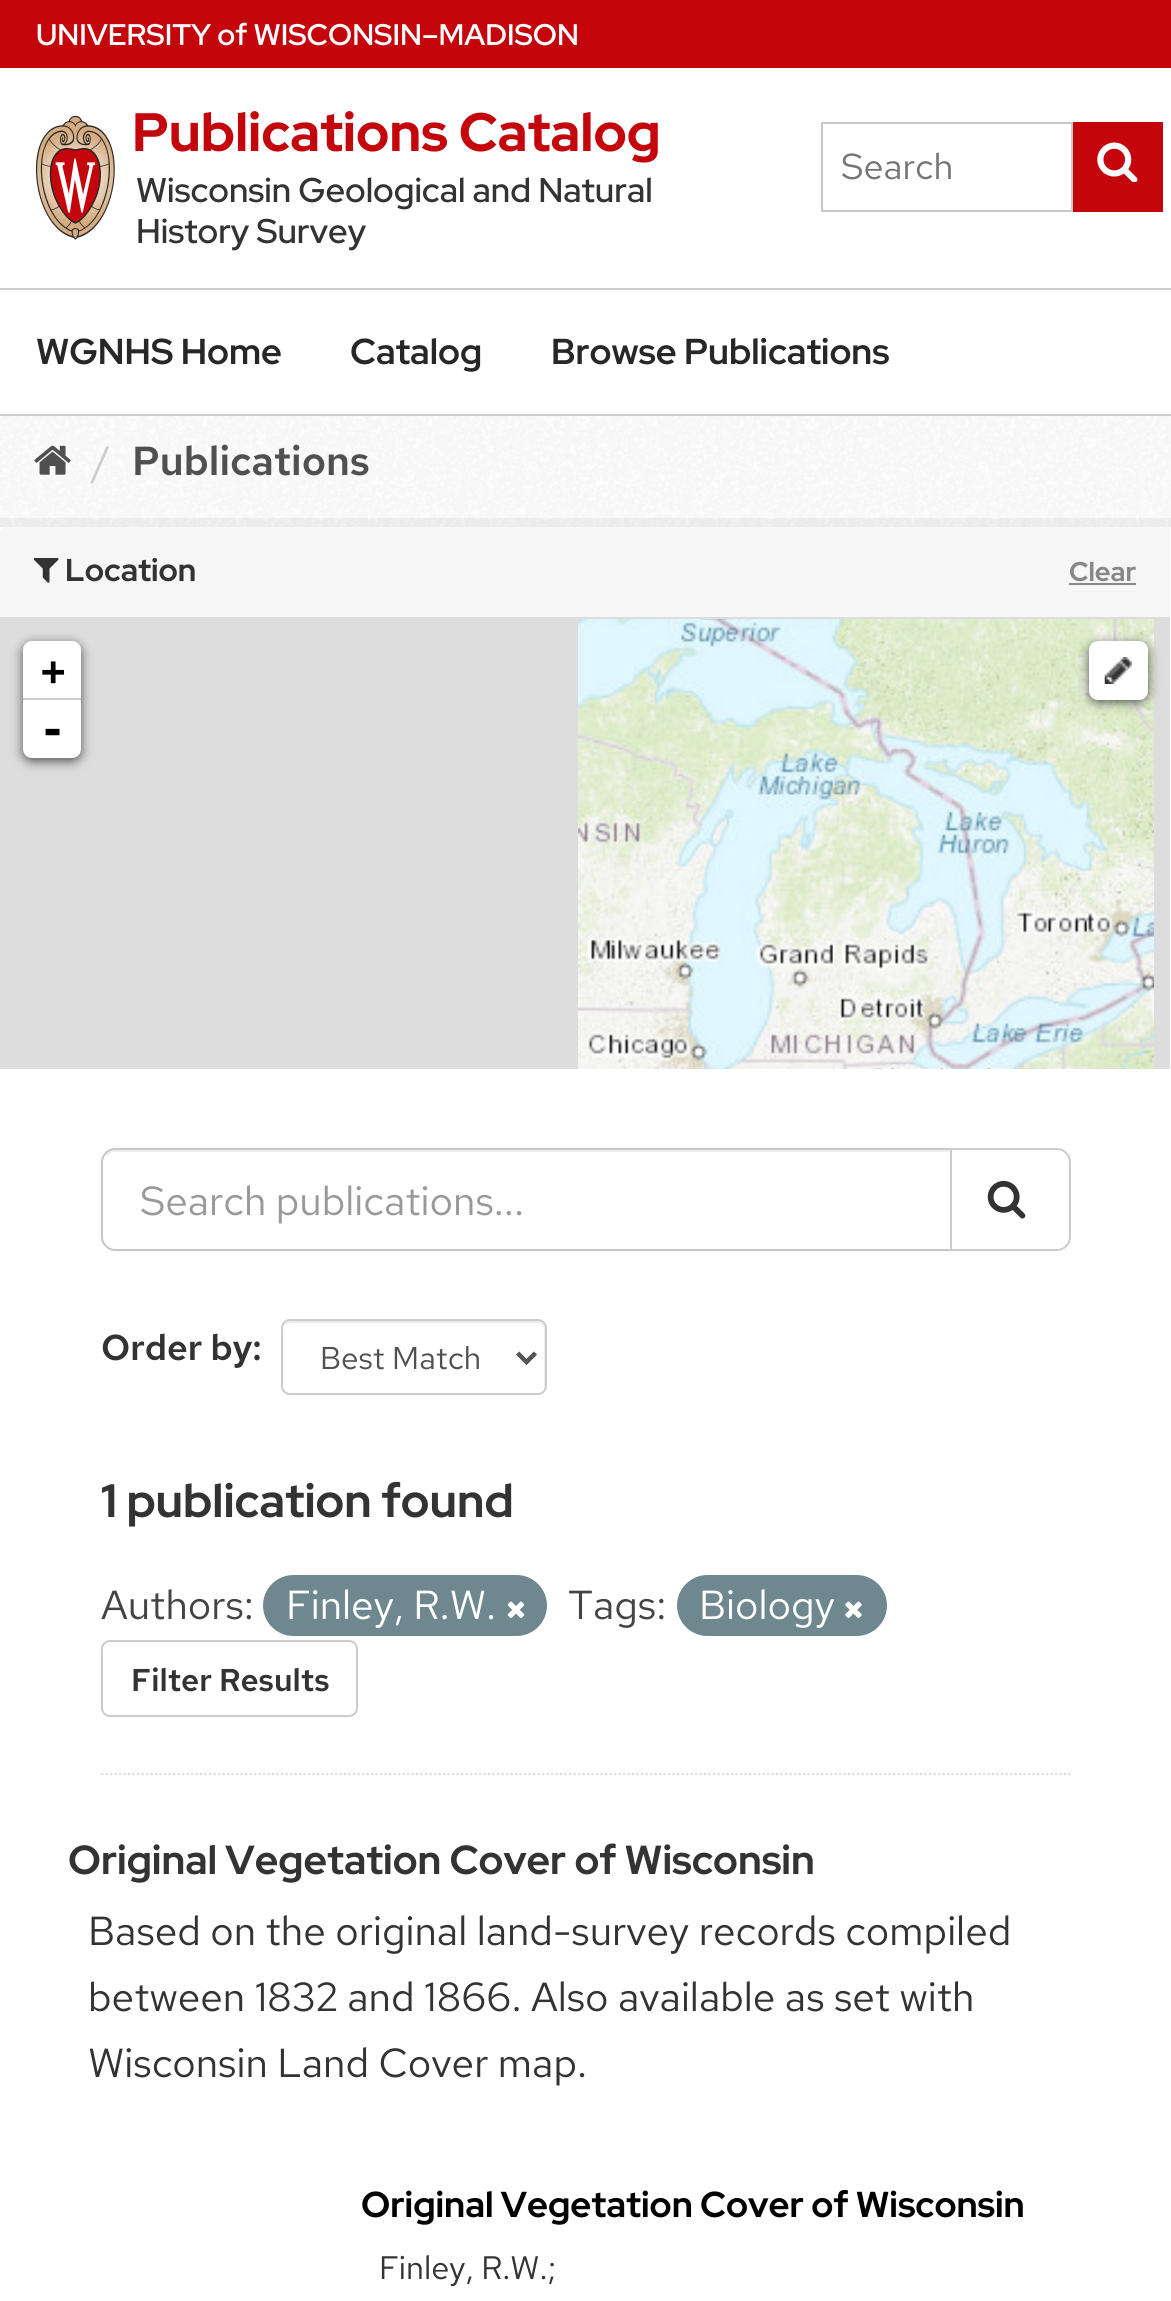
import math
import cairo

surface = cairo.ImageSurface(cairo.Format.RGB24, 1171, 2301)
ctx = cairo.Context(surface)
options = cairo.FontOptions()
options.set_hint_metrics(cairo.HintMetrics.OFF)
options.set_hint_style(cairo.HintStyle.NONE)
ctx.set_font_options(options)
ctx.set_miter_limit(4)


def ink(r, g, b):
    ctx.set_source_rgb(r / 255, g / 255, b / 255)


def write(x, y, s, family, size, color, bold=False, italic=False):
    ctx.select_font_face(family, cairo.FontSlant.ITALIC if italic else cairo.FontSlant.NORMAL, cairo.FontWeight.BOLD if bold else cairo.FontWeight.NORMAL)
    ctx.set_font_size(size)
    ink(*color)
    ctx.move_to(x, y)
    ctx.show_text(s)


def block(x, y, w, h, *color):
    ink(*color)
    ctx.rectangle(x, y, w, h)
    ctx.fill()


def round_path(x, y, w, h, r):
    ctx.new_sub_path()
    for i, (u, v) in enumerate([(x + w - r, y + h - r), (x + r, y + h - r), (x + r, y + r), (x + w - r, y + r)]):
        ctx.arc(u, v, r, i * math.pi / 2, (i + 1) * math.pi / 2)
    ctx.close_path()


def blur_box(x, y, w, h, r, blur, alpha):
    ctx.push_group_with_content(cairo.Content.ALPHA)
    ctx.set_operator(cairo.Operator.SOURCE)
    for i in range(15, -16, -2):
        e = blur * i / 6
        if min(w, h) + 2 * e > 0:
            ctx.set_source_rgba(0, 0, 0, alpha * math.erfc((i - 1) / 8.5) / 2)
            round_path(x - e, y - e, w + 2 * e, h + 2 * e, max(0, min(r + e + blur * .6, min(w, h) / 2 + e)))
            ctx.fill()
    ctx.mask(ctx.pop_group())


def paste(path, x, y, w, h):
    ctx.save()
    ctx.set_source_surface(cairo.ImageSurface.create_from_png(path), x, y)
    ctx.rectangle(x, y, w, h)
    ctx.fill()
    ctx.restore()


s1 = dict(family="Red Hat Display SemiBold", size=29.75, color=(255, 255, 255))
s2 = dict(family="Red Hat Display ExtraBold", size=54, color=(197, 5, 12))
s3 = dict(family="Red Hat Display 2 SemiBold", size=34.25, color=(51, 51, 51))
s4 = dict(family="Red Hat Text", size=36, color=(117, 117, 117))
s5 = dict(family="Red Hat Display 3 SemiBold", size=36, color=(40, 39, 40))
s6 = dict(family="Red Hat Text", size=40.5, color=(204, 204, 204))
s7 = dict(family="Red Hat Text SemiBold", size=40.5, color=(80, 80, 80))
s8 = dict(family="Red Hat Display", size=31.5, color=(51, 51, 51), bold=True)
s9 = dict(family="Red Hat Display", size=27, color=(136, 136, 136), bold=True)
s10 = dict(family="DejaVu Sans Mono", size=40.5, color=(0, 0, 0), bold=True)
s11 = dict(family="DejaVu Sans Mono", size=45, color=(0, 0, 0), bold=True)
s12 = dict(family="Red Hat Text", size=40.5, color=(153, 153, 153))
s13 = dict(family="Red Hat Text SemiBold", size=36, color=(51, 51, 51))
s14 = dict(family="Red Hat Text", size=31.5, color=(80, 80, 80))
s15 = dict(family="Red Hat Display", size=46.75, color=(51, 51, 51), bold=True)
s16 = dict(family="Red Hat Text", size=40.5, color=(68, 68, 68))
s17 = dict(family="Red Hat Text", size=40.5, color=(255, 255, 255))
s18 = dict(family="Red Hat Text SemiBold", size=31.5, color=(51, 51, 51))
s19 = dict(family="Red Hat Display", size=40.5, color=(51, 51, 51), bold=True)
s20 = dict(family="Red Hat Text", size=40.5, color=(51, 51, 51))
s21 = dict(family="Red Hat Display", size=36, color=(0, 0, 0), bold=True)
s22 = dict(family="Red Hat Text", size=32.5, color=(51, 51, 51))

ink(255, 255, 255)
ctx.paint()
paste("pic1.png", 0, 416, 1171, 111)
block(0, 0, 1171, 68, 197, 5, 12)
write(36, 45, "UNIVERSITY of WISCONSIN–MADISON", **s1)
paste("pic2.png", 36, 115, 79, 125)
write(132, 151, "Publications Catalog", **s2)
write(136, 202, "Wisconsin Geological and Natural", **s3)
write(136, 243, "History Survey", **s3)
ctx.rectangle(822, 123, 250, 88)
ink(200, 200, 200)
ctx.stroke()
write(841, 179, "Search", **s4)
block(1073, 122, 90, 90, 197, 5, 12)
paste("pic3.png", 1097, 142, 41, 40)
block(0, 288, 1171, 2, 207, 207, 207)
block(0, 414, 1171, 2, 207, 207, 207)
write(36, 364, "WGNHS Home", **s5)
write(350, 364, "Catalog", **s5)
write(551, 364, "Browse Publications", **s5)
paste("pic4.png", 34, 445, 37, 30)
write(92, 475, "/", **s6)
write(132, 475, "Publications", **s7)
ctx.rectangle(-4.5, 522.5, 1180, 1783)
ctx.set_source_rgba(0, 0, 0, 0.05)
ctx.set_line_width(9)
ctx.stroke()
ink(246, 246, 246)
ctx.new_path()
ctx.move_to(7, 527)
ctx.line_to(1170, 527)
ctx.line_to(1170, 619)
ctx.line_to(0, 619)
ctx.line_to(0, 534)
ctx.curve_to(0, 530, 3, 527, 7, 527)
ctx.close_path()
ctx.fill()
block(0, 617, 1170, 452, 221, 221, 221)
paste("pic5.png", 33, 558, 26, 25)
write(65, 581, "Location", **s8)
write(1069, 581, "Clear", **s9)
block(1069, 583, 67, 2, 136, 136, 136)
ink(0, 0, 0)
blur_box(23, 644, 58, 117, 9, 5.5, 0.65)
ink(255, 255, 255)
ctx.new_path()
ctx.move_to(32, 641)
ctx.line_to(72, 641)
ctx.curve_to(77, 641, 81, 645, 81, 650)
ctx.line_to(81, 700)
ctx.line_to(23, 700)
ctx.line_to(23, 650)
ctx.curve_to(23, 645, 27, 641, 32, 641)
ctx.close_path()
ctx.fill()
block(23, 698, 58, 2, 204, 204, 204)
write(41, 685, "+", **s10)
ink(255, 255, 255)
ctx.new_path()
ctx.move_to(23, 700)
ctx.line_to(81, 700)
ctx.line_to(81, 749)
ctx.curve_to(81, 754, 77, 758, 72, 758)
ctx.line_to(32, 758)
ctx.curve_to(27, 758, 23, 754, 23, 749)
ctx.close_path()
ctx.fill()
write(39, 745, "-", **s11)
paste("pic7.png", 578, 619, 576, 450)
ink(0, 0, 0)
blur_box(1089, 644, 59, 58, 9, 5.5, 0.65)
ink(255, 255, 255)
round_path(1089, 641, 59, 59, 9)
ctx.fill()
paste("pic6.png", 1104, 657, 28, 27)
ctx.new_path()
ctx.move_to(101, 1774)
ctx.line_to(1071, 1774)
ink(221, 221, 221)
ctx.set_line_width(2.2)
ctx.set_dash([2.25, 2.25])
ctx.stroke()
ink(236, 236, 236)
ctx.new_path()
ctx.move_to(115, 1152)
ctx.line_to(950, 1152)
ctx.line_to(950, 1150)
ctx.line_to(115, 1150)
ctx.curve_to(108, 1150, 104, 1156, 104, 1163)
ctx.curve_to(104, 1157, 109, 1152, 115, 1152)
ctx.close_path()
ctx.fill()
ctx.new_path()
ctx.move_to(115, 1149)
ctx.line_to(951, 1149)
ctx.line_to(951, 1250)
ctx.line_to(115, 1250)
ctx.curve_to(108, 1250, 102, 1244, 102, 1237)
ctx.line_to(102, 1162)
ctx.curve_to(102, 1155, 108, 1149, 115, 1149)
ctx.close_path()
ink(200, 200, 200)
ctx.set_line_width(2)
ctx.set_dash([])
ctx.stroke()
write(140, 1215, "Search publications...", **s12)
ink(255, 255, 255)
ctx.new_path()
ctx.move_to(951, 1149)
ctx.line_to(1057, 1149)
ctx.curve_to(1064, 1149, 1070, 1155, 1070, 1162)
ctx.line_to(1070, 1237)
ctx.curve_to(1070, 1244, 1064, 1250, 1057, 1250)
ctx.line_to(951, 1250)
ctx.close_path()
ctx.fill_preserve()
ink(204, 204, 204)
ctx.stroke()
paste("pic8.png", 987, 1180, 39, 39)
write(101, 1360, "Order by:", **s13)
ink(236, 236, 236)
ctx.new_path()
ctx.move_to(290, 1323)
ctx.line_to(538, 1323)
ctx.curve_to(541, 1323, 544, 1326, 544, 1330)
ctx.line_to(544, 1390)
ctx.curve_to(545, 1389, 545, 1387, 545, 1386)
ctx.line_to(545, 1328)
ctx.curve_to(545, 1324, 542, 1321, 538, 1321)
ctx.line_to(291, 1321)
ctx.curve_to(287, 1321, 284, 1324, 284, 1328)
ctx.line_to(284, 1330)
ctx.curve_to(284, 1326, 287, 1323, 290, 1323)
ctx.close_path()
ctx.fill()
round_path(282, 1320, 264, 74, 8)
ink(204, 204, 204)
ctx.stroke()
ctx.new_path()
ctx.move_to(517.5, 1353)
ctx.line_to(526.5, 1362)
ctx.line_to(535.5, 1353)
ink(85, 85, 85)
ctx.set_line_width(4.5)
ctx.stroke()
write(320, 1369, "Best Match", **s14)
write(101, 1517, "1 publication found", **s15)
write(101, 1619, "Authors:", **s16)
ink(111, 136, 144)
round_path(263, 1575, 284, 61, 30.5)
ctx.fill()
write(286, 1619, "Finley, R.W.", **s17)
paste("pic9.png", 507, 1601, 18, 17)
write(568, 1619, "Tags:", **s16)
ink(111, 136, 144)
round_path(677, 1575, 210, 61, 30.5)
ctx.fill()
write(699, 1619, "Biology", **s17)
paste("pic10.png", 845, 1601, 17, 17)
round_path(102, 1641, 255, 75, 8)
ink(204, 204, 204)
ctx.set_line_width(2)
ctx.stroke()
write(131, 1691, "Filter Results", **s18)
write(68, 1874, "Original Vegetation Cover of Wisconsin", **s19)
write(88, 1945, "Based on the original land-survey records compiled", **s20)
write(88, 2011, "between 1832 and 1866. Also available as set with", **s20)
write(88, 2077, "Wisconsin Land Cover map.", **s20)
write(361, 2217, "Original Vegetation Cover of Wisconsin", **s21)
write(379, 2279, "Finley, R.W.;", **s22)
surface.write_to_png("screenshot.png")
